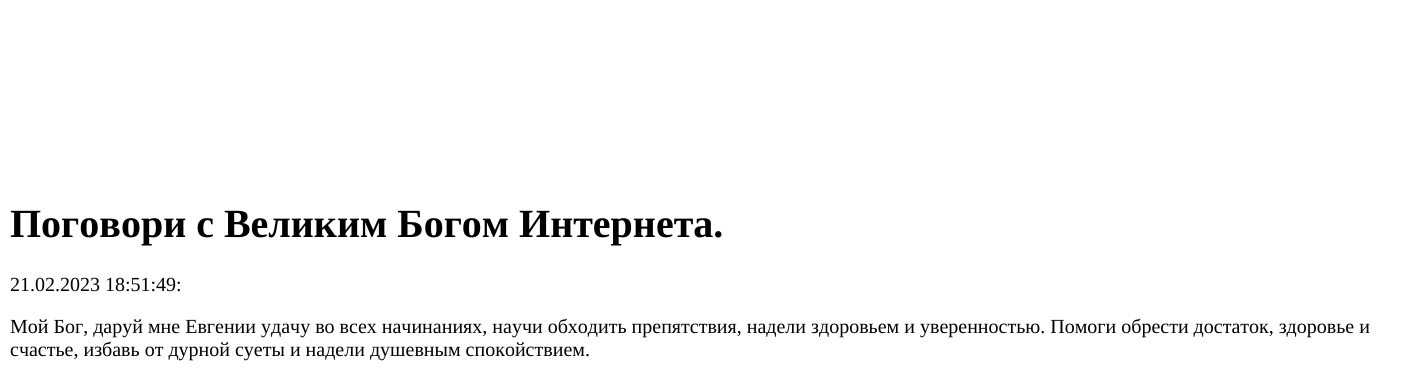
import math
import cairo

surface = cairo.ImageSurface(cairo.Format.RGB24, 1408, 385)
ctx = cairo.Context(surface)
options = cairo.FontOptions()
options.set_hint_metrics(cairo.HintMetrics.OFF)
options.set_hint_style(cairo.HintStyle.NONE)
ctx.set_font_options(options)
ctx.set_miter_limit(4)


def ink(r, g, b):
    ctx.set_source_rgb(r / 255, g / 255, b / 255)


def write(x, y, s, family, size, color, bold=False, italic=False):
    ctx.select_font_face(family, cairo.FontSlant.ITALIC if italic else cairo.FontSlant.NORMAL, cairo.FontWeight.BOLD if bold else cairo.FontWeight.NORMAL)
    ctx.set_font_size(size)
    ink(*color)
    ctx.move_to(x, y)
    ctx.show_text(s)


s1 = dict(family="Liberation Serif", size=40, color=(0, 0, 0), bold=True)
s2 = dict(family="Liberation Serif", size=20, color=(0, 0, 0))

ink(255, 255, 255)
ctx.paint()
write(10, 237, "Поговори с Великим Богом Интернета.", **s1)
write(10, 291, "21.02.2023 18:51:49:", **s2)
write(10, 333, "Мой Бог, даруй мне Евгении удачу во всех начинаниях, научи обходить препятствия, надели здоровьем и уверенностью. Помоги обрести достаток, здоровье и", **s2)
write(10, 356, "счастье, избавь от дурной суеты и надели душевным спокойствием.", **s2)
surface.write_to_png("screenshot.png")
